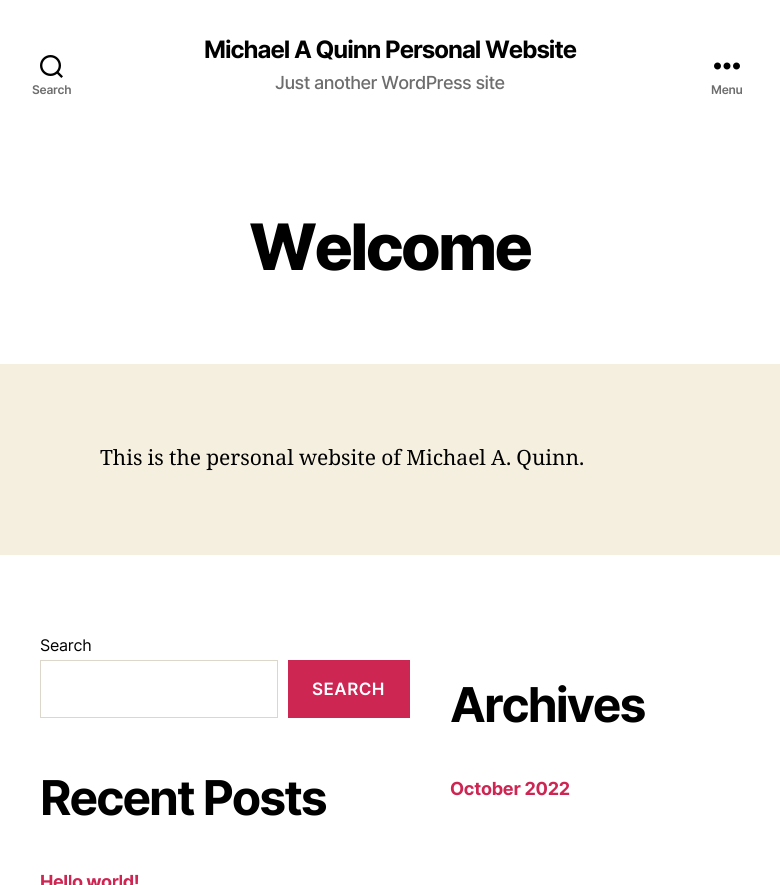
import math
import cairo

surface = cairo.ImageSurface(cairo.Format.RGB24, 780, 885)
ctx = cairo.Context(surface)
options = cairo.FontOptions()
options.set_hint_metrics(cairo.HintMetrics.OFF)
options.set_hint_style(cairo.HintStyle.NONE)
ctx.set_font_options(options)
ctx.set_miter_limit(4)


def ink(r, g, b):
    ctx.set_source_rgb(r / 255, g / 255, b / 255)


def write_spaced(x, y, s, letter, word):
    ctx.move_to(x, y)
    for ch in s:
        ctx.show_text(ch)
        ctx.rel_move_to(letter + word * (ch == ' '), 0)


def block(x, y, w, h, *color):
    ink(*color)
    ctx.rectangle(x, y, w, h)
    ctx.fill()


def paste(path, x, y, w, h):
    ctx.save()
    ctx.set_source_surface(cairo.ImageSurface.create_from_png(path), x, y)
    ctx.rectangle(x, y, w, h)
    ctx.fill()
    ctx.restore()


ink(245, 239, 224)
ctx.paint()
block(0, 0, 780, 364, 255, 255, 255)
paste("pic1.png", 40, 55, 23, 23)
ctx.select_font_face("Inter SemiBold")
ctx.set_font_size(12)
ink(109, 109, 109)
write_spaced(32, 94, "Search", -0.25, 0)
ctx.select_font_face("Inter", cairo.FontSlant.NORMAL, cairo.FontWeight.BOLD)
ctx.set_font_size(24)
ink(0, 0, 0)
write_spaced(204, 58, "Michael A Quinn Personal Website", -1, 0)
ctx.select_font_face("Inter Medium")
ctx.set_font_size(18)
ink(109, 109, 109)
write_spaced(275, 89, "Just another WordPress site", -0.55, 0)
paste("pic2.png", 714, 62, 26, 8)
ctx.select_font_face("Inter SemiBold")
ctx.set_font_size(12)
write_spaced(711, 94, "Menu", -0.25, 0)
ctx.select_font_face("Inter ExtraBold")
ctx.set_font_size(64)
ink(0, 0, 0)
write_spaced(249, 270, "Welcome", -2.75, 0)
ctx.select_font_face("Noto Serif")
ctx.set_font_size(21)
write_spaced(100, 465, "This is the personal website of Michael A. Quinn.", 0, -0.25)
block(0, 555, 780, 330, 255, 255, 255)
ctx.select_font_face("Inter")
ctx.set_font_size(16)
ink(0, 0, 0)
write_spaced(40, 651, "Search", -0.25, 0)
ctx.rectangle(40.5, 660.5, 237, 57)
ink(220, 215, 202)
ctx.set_line_width(1)
ctx.stroke()
block(288, 660, 122, 58, 205, 38, 83)
ctx.select_font_face("Inter SemiBold")
ctx.set_font_size(17)
ink(255, 255, 255)
write_spaced(312, 695, "SEARCH", 0.5, 0)
ctx.select_font_face("Inter", cairo.FontSlant.NORMAL, cairo.FontWeight.BOLD)
ctx.set_font_size(48)
ink(0, 0, 0)
write_spaced(40, 815, "Recent Posts", -2, 0)
ctx.set_font_size(18)
ink(205, 38, 83)
write_spaced(40, 888, "Hello world!", -0.5, 0)
ctx.set_font_size(48)
ink(0, 0, 0)
write_spaced(450, 722, "Archives", -2, 0)
ctx.set_font_size(18)
ink(205, 38, 83)
write_spaced(450, 795, "October 2022", -0.25, 0)
surface.write_to_png("screenshot.png")
